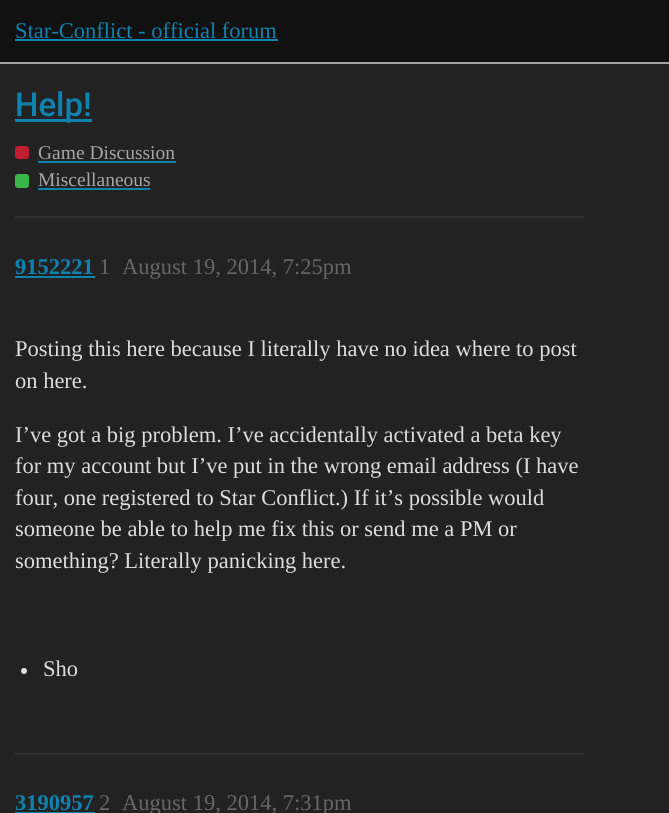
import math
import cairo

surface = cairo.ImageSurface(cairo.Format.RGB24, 669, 813)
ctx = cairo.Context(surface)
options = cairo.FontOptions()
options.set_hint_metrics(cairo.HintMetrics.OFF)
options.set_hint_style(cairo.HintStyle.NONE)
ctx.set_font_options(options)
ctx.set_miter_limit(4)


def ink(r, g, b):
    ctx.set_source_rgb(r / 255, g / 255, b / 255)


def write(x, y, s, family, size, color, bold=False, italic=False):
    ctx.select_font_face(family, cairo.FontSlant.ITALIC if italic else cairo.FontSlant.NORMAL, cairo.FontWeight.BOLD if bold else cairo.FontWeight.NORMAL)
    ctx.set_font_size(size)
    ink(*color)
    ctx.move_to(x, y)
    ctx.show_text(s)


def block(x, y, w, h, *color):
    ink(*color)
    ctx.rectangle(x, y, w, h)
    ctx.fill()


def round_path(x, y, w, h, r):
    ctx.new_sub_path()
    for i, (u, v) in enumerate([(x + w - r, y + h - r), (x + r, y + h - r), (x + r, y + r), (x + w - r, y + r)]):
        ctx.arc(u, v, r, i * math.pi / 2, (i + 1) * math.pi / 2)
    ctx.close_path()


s1 = dict(family="Liberation Serif", size=22.5, color=(15, 130, 175))
s2 = dict(family="Roboto Medium", size=33, color=(15, 130, 175))
s3 = dict(family="Liberation Serif", size=19.5, color=(166, 166, 166))
s4 = dict(family="Liberation Serif", size=22.5, color=(15, 130, 175), bold=True)
s5 = dict(family="Liberation Serif", size=22.5, color=(102, 102, 102))
s6 = dict(family="Liberation Serif", size=22.5, color=(221, 221, 221))

ink(34, 34, 34)
ctx.paint()
block(0, 0, 669, 62, 17, 17, 17)
block(0, 62, 669, 2, 164, 164, 164)
write(15, 38, "Star-Conflict - official forum", **s1)
block(15, 39, 263, 2, 15, 130, 175)
block(15, 119, 77, 3, 15, 130, 175)
write(15, 116, "Help!", **s2)
ink(191, 30, 46)
round_path(15, 146, 14, 13, 3)
ctx.fill()
write(38, 159, "Game Discussion", **s3)
block(38, 161, 138, 2, 15, 130, 175)
ink(58, 181, 74)
round_path(15, 174, 14, 14, 3)
ctx.fill()
write(38, 186, "Miscellaneous", **s3)
block(38, 188, 112, 2, 15, 130, 175)
block(15, 216, 569, 2, 49, 49, 49)
write(15, 274, "9152221", **s4)
block(15, 276, 80, 2, 15, 130, 175)
write(99, 274, "1", **s5)
write(122, 274, "August 19, 2014, 7:25pm", **s5)
write(15, 356, "Posting this here because I literally have no idea where to post", **s6)
write(15, 388, "on here.", **s6)
write(15, 442, "I’ve got a big problem. I’ve accidentally activated a beta key", **s6)
write(15, 473, "for my account but I’ve put in the wrong email address (I have", **s6)
write(15, 505, "four, one registered to Star Conflict.) If it’s possible would", **s6)
write(15, 536, "someone be able to help me fix this or send me a PM or", **s6)
write(15, 568, "something? Literally panicking here.", **s6)
ctx.new_path()
ctx.arc(24, 671, 3, 0, 2 * math.pi)
ctx.fill()
write(43, 676, "Sho", **s6)
block(15, 753, 569, 2, 49, 49, 49)
write(15, 810, "3190957", **s4)
block(15, 812, 80, 1, 15, 130, 175)
write(99, 810, "2", **s5)
write(122, 810, "August 19, 2014, 7:31pm", **s5)
surface.write_to_png("screenshot.png")
